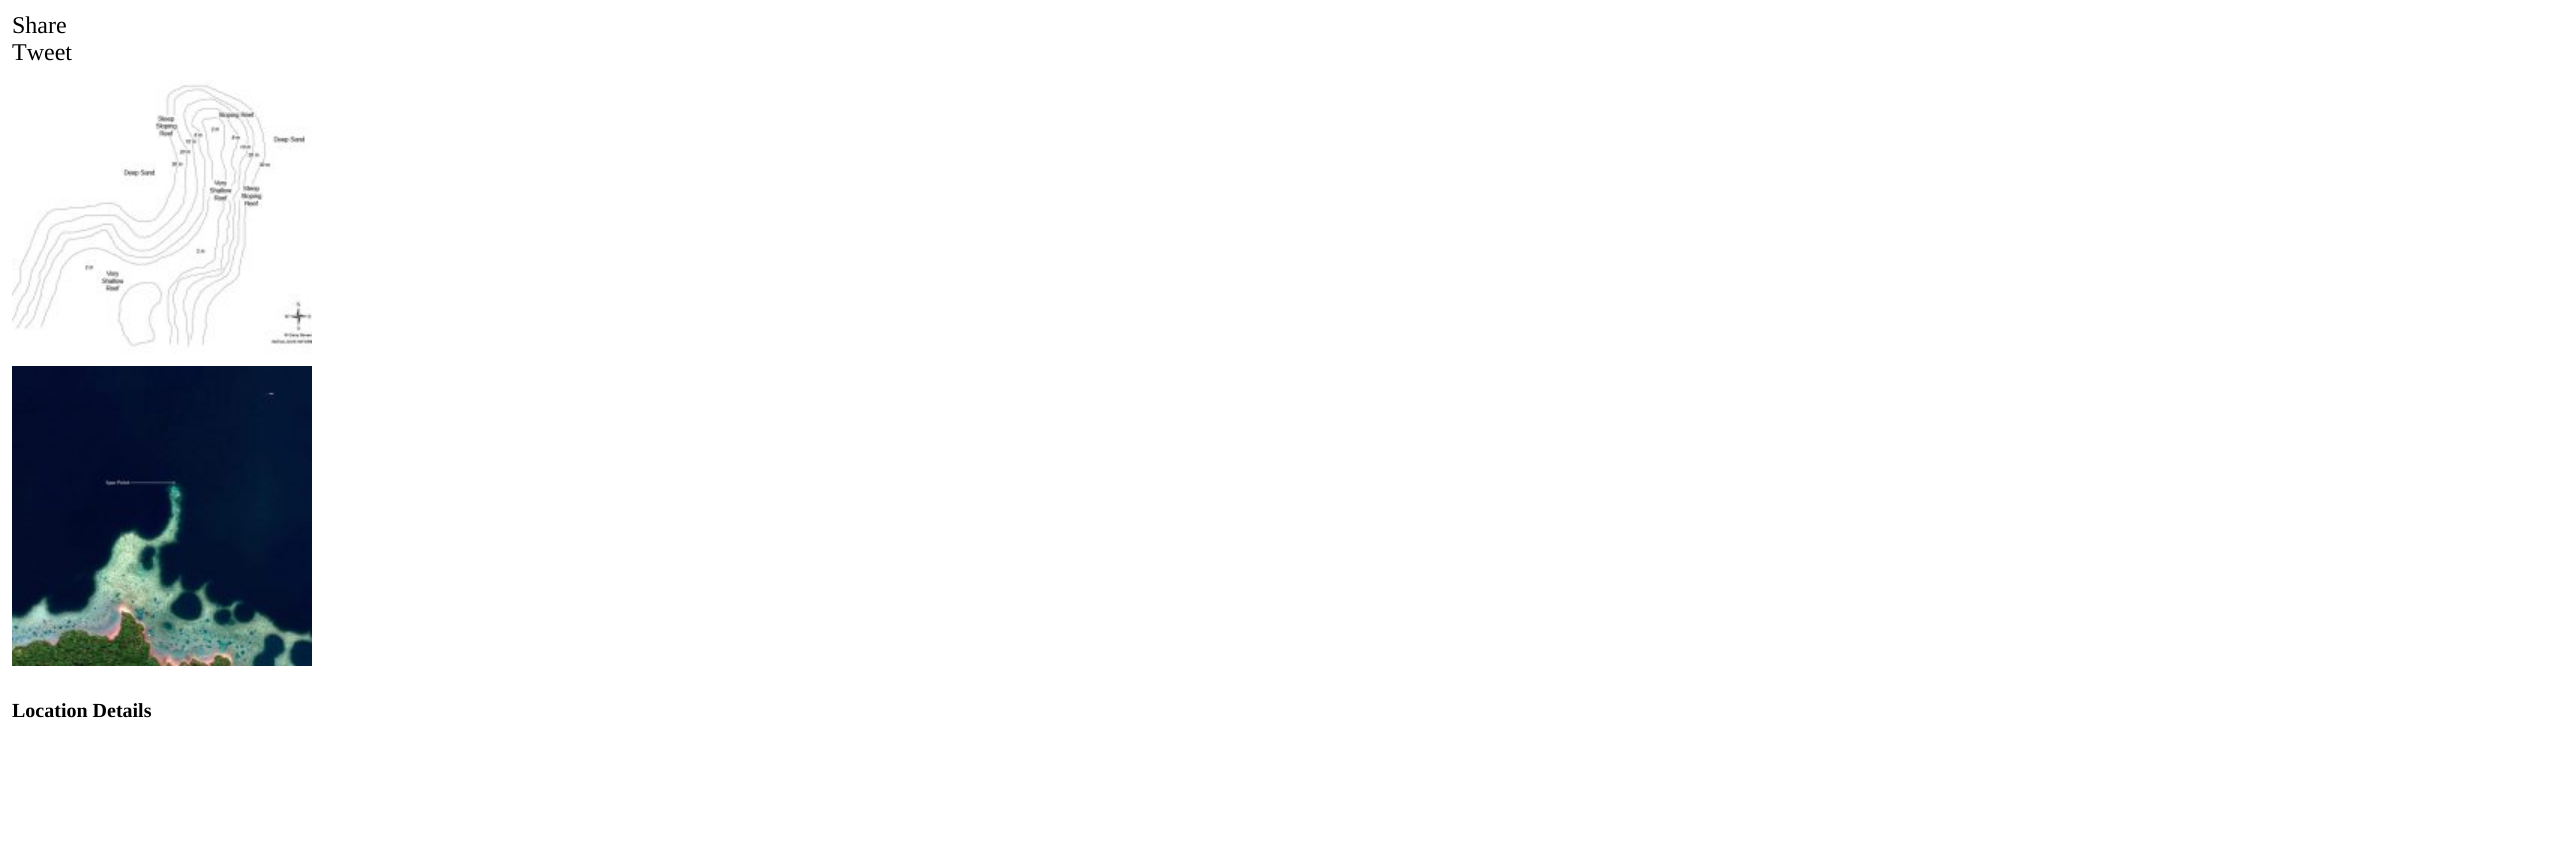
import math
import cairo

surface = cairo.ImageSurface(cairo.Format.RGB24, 2558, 862)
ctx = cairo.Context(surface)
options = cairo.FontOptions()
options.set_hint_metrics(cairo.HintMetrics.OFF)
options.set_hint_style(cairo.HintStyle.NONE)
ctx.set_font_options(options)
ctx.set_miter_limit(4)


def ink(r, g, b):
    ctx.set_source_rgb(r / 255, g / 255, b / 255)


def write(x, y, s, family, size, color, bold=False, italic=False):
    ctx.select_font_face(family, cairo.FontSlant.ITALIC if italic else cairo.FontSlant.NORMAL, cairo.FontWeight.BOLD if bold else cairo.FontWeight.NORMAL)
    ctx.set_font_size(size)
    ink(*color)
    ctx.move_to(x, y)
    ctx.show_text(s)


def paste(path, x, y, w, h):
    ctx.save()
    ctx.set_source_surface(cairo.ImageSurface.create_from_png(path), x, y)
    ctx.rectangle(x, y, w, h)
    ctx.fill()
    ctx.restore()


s1 = dict(family="Liberation Serif", size=24, color=(0, 0, 0))
s2 = dict(family="Liberation Serif", size=20, color=(0, 0, 0), bold=True)

ink(255, 255, 255)
ctx.paint()
write(12, 33, "Share", **s1)
write(12, 60, "Tweet", **s1)
paste("pic1.png", 12, 80, 300, 274)
paste("pic2.png", 12, 366, 300, 300)
write(12, 717, "Location Details", **s2)
surface.write_to_png("screenshot.png")
